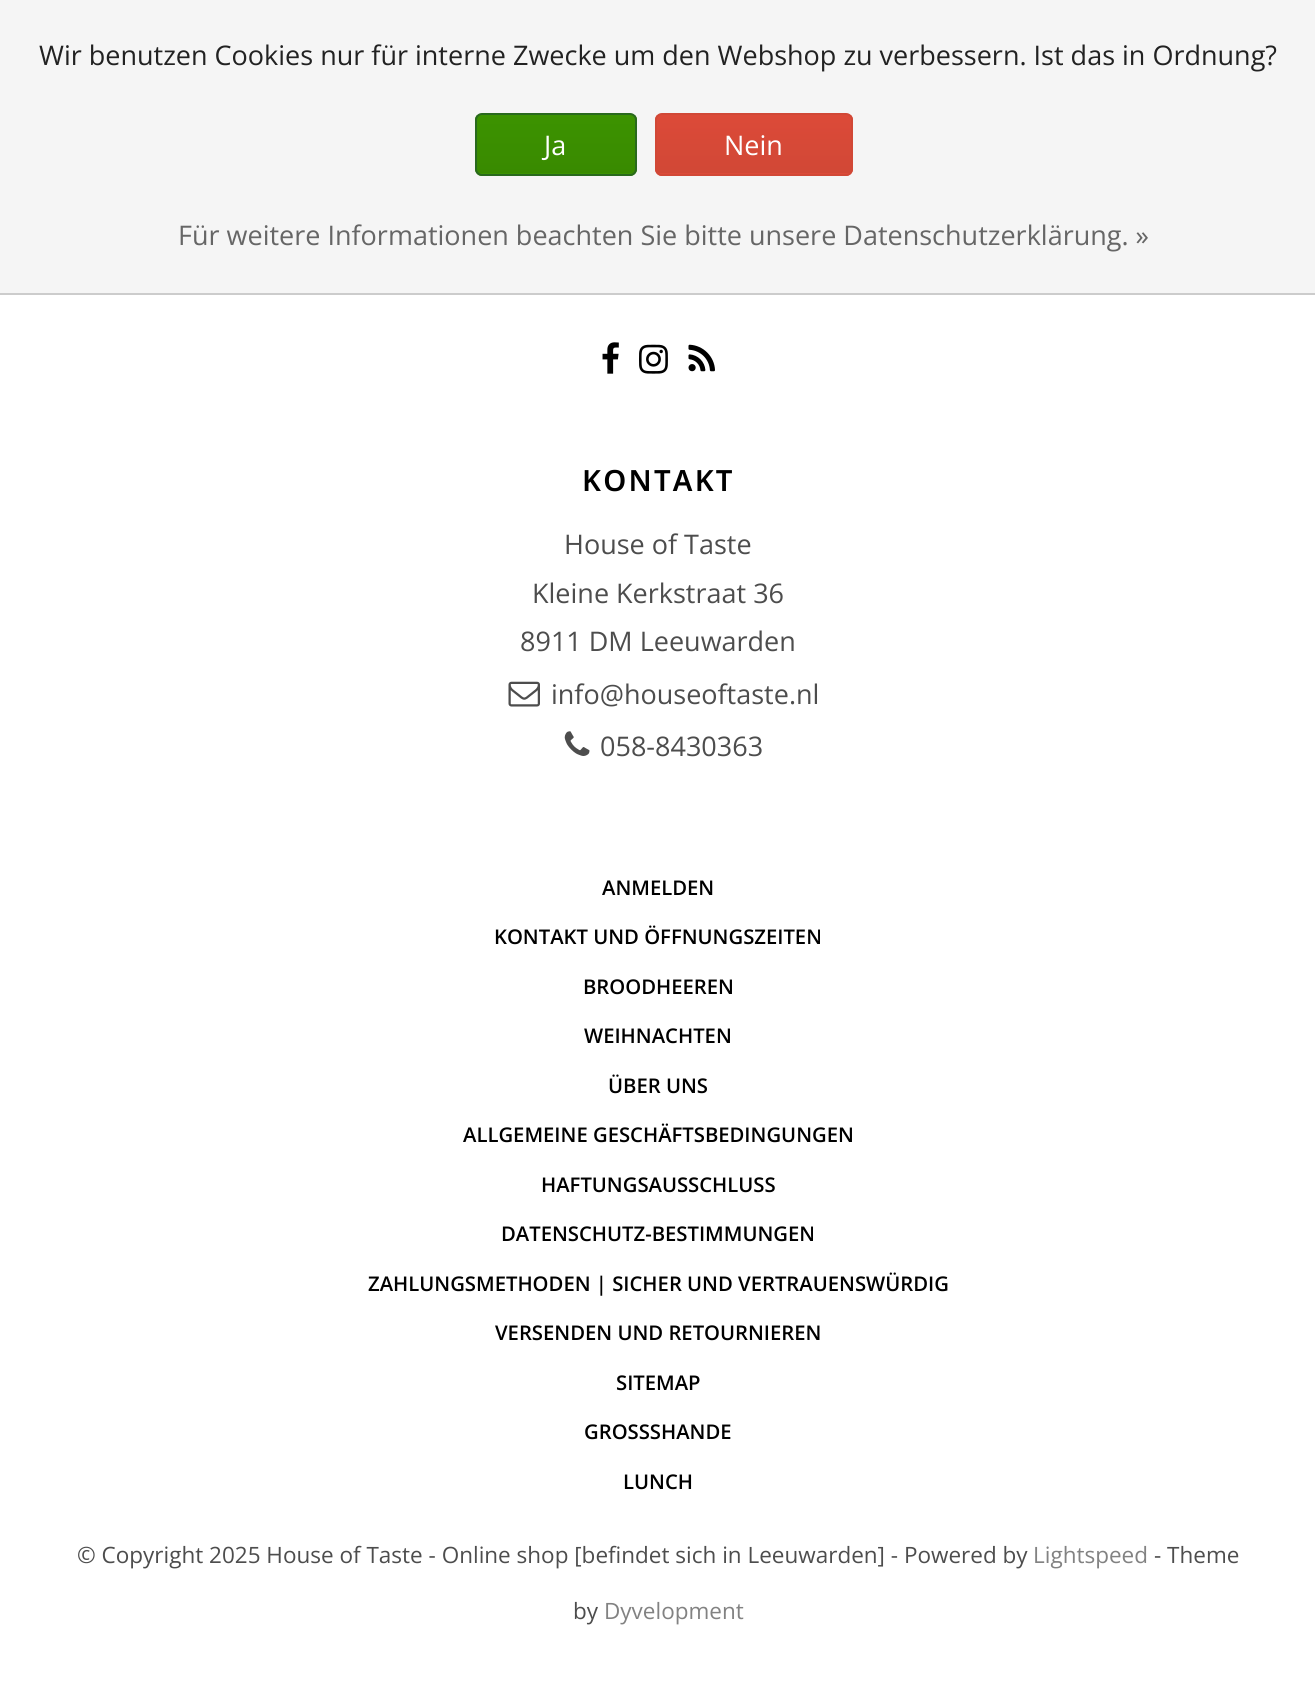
import math
import cairo

surface = cairo.ImageSurface(cairo.Format.RGB24, 1315, 1684)
ctx = cairo.Context(surface)
options = cairo.FontOptions()
options.set_hint_metrics(cairo.HintMetrics.OFF)
options.set_hint_style(cairo.HintStyle.NONE)
ctx.set_font_options(options)
ctx.set_miter_limit(4)


def ink(r, g, b):
    ctx.set_source_rgb(r / 255, g / 255, b / 255)


def write(x, y, s, family, size, color, bold=False, italic=False):
    ctx.select_font_face(family, cairo.FontSlant.ITALIC if italic else cairo.FontSlant.NORMAL, cairo.FontWeight.BOLD if bold else cairo.FontWeight.NORMAL)
    ctx.set_font_size(size)
    ink(*color)
    ctx.move_to(x, y)
    ctx.show_text(s)


def write_spaced(x, y, s, letter, word):
    ctx.move_to(x, y)
    for ch in s:
        ctx.show_text(ch)
        ctx.rel_move_to(letter + word * (ch == ' '), 0)


def block(x, y, w, h, *color):
    ink(*color)
    ctx.rectangle(x, y, w, h)
    ctx.fill()


def round_path(x, y, w, h, r):
    ctx.new_sub_path()
    for i, (u, v) in enumerate([(x + w - r, y + h - r), (x + r, y + h - r), (x + r, y + r), (x + w - r, y + r)]):
        ctx.arc(u, v, r, i * math.pi / 2, (i + 1) * math.pi / 2)
    ctx.close_path()


def paste(path, x, y, w, h):
    ctx.save()
    ctx.set_source_surface(cairo.ImageSurface.create_from_png(path), x, y)
    ctx.rectangle(x, y, w, h)
    ctx.fill()
    ctx.restore()


s1 = dict(family="Open Sans", size=27, color=(34, 34, 34))
s2 = dict(family="Open Sans", size=27, color=(255, 255, 255))
s3 = dict(family="Open Sans", size=27, color=(102, 102, 102))
s4 = dict(family="Open Sans", size=27, color=(77, 77, 77))
s5 = dict(family="Open Sans SemiBold", size=20.25, color=(0, 0, 0))
s6 = dict(family="Open Sans", size=22.5, color=(77, 77, 77))
s7 = dict(family="Open Sans", size=22.5, color=(130, 130, 130))

ink(255, 255, 255)
ctx.paint()
block(0, 0, 1315, 293, 245, 245, 245)
block(0, 293, 1315, 2, 204, 204, 204)
write(39, 65, "Wir benutzen Cookies nur für interne Zwecke um den Webshop zu verbessern. Ist das in Ordnung?", **s1)
ctx.save()
round_path(475, 113, 162, 63, 7)
ctx.clip()
gradient = cairo.LinearGradient(556, 115, 556, 173)
gradient.add_color_stop_rgba(0, 0.235, 0.576, 0, 1)
gradient.add_color_stop_rgba(1, 0.224, 0.541, 0, 1)
ctx.set_source(gradient)
ctx.rectangle(475, 115, 162, 58)
ctx.fill()
gradient = cairo.LinearGradient(556, 173, 556, 232)
gradient.add_color_stop_rgba(0, 0.235, 0.576, 0, 1)
gradient.add_color_stop_rgba(1, 0.224, 0.541, 0, 1)
ctx.set_source(gradient)
ctx.rectangle(475, 173, 162, 3)
ctx.fill()
ctx.restore()
round_path(476, 114, 160, 61, 6)
ink(41, 105, 29)
ctx.stroke()
write(544, 155, "Ja", **s2)
ctx.save()
round_path(655, 113, 198, 63, 7)
ctx.clip()
gradient = cairo.LinearGradient(754, 115, 754, 173)
gradient.add_color_stop_rgba(0, 0.863, 0.29, 0.22, 1)
gradient.add_color_stop_rgba(1, 0.82, 0.282, 0.212, 1)
ctx.set_source(gradient)
ctx.rectangle(655, 115, 198, 58)
ctx.fill()
gradient = cairo.LinearGradient(754, 173, 754, 232)
gradient.add_color_stop_rgba(0, 0.863, 0.29, 0.22, 1)
gradient.add_color_stop_rgba(1, 0.82, 0.282, 0.212, 1)
ctx.set_source(gradient)
ctx.rectangle(655, 173, 198, 3)
ctx.fill()
ctx.restore()
round_path(656, 114, 196, 61, 6)
ink(209, 72, 54)
ctx.stroke()
write(724, 155, "Nein", **s2)
write(178, 245, "Für weitere Informationen beachten Sie bitte unsere Datenschutzerklärung. »", **s3)
paste("pic1.png", 602, 342, 17, 32)
paste("pic2.png", 639, 344, 29, 30)
paste("pic3.png", 688, 344, 27, 28)
ctx.select_font_face("Noto Sans SemiBold")
ctx.set_font_size(29.25)
ink(0, 0, 0)
write_spaced(582, 491, "KONTAKT", 2.25, 0)
write(564, 554, "House of Taste", **s4)
write(532, 603, "Kleine Kerkstraat 36", **s4)
write(520, 651, "8911 DM Leeuwarden", **s4)
paste("pic4.png", 508, 681, 32, 26)
write(551, 704, "info@houseoftaste.nl", **s4)
paste("pic5.png", 564, 731, 26, 25)
write(600, 756, "058-8430363", **s4)
write(602, 895, "ANMELDEN", **s5)
write(494, 944, "KONTAKT UND ÖFFNUNGSZEITEN", **s5)
write(583, 994, "BROODHEEREN", **s5)
write(584, 1043, "WEIHNACHTEN", **s5)
write(608, 1093, "ÜBER UNS", **s5)
write(463, 1142, "ALLGEMEINE GESCHÄFTSBEDINGUNGEN", **s5)
write(541, 1192, "HAFTUNGSAUSSCHLUSS", **s5)
write(501, 1241, "DATENSCHUTZ-BESTIMMUNGEN", **s5)
write(368, 1291, "ZAHLUNGSMETHODEN | SICHER UND VERTRAUENSWÜRDIG", **s5)
write(495, 1340, "VERSENDEN UND RETOURNIEREN", **s5)
write(616, 1390, "SITEMAP", **s5)
write(584, 1439, "GROSSSHANDE", **s5)
write(623, 1489, "LUNCH", **s5)
write(77, 1563, "© Copyright 2025 House of Taste - Online shop [befindet sich in Leeuwarden] - Powered by", **s6)
write(1033, 1563, "Lightspeed", **s7)
write(1154, 1563, "- Theme", **s6)
write(573, 1619, "by", **s6)
write(604, 1619, "Dyvelopment", **s7)
surface.write_to_png("screenshot.png")
